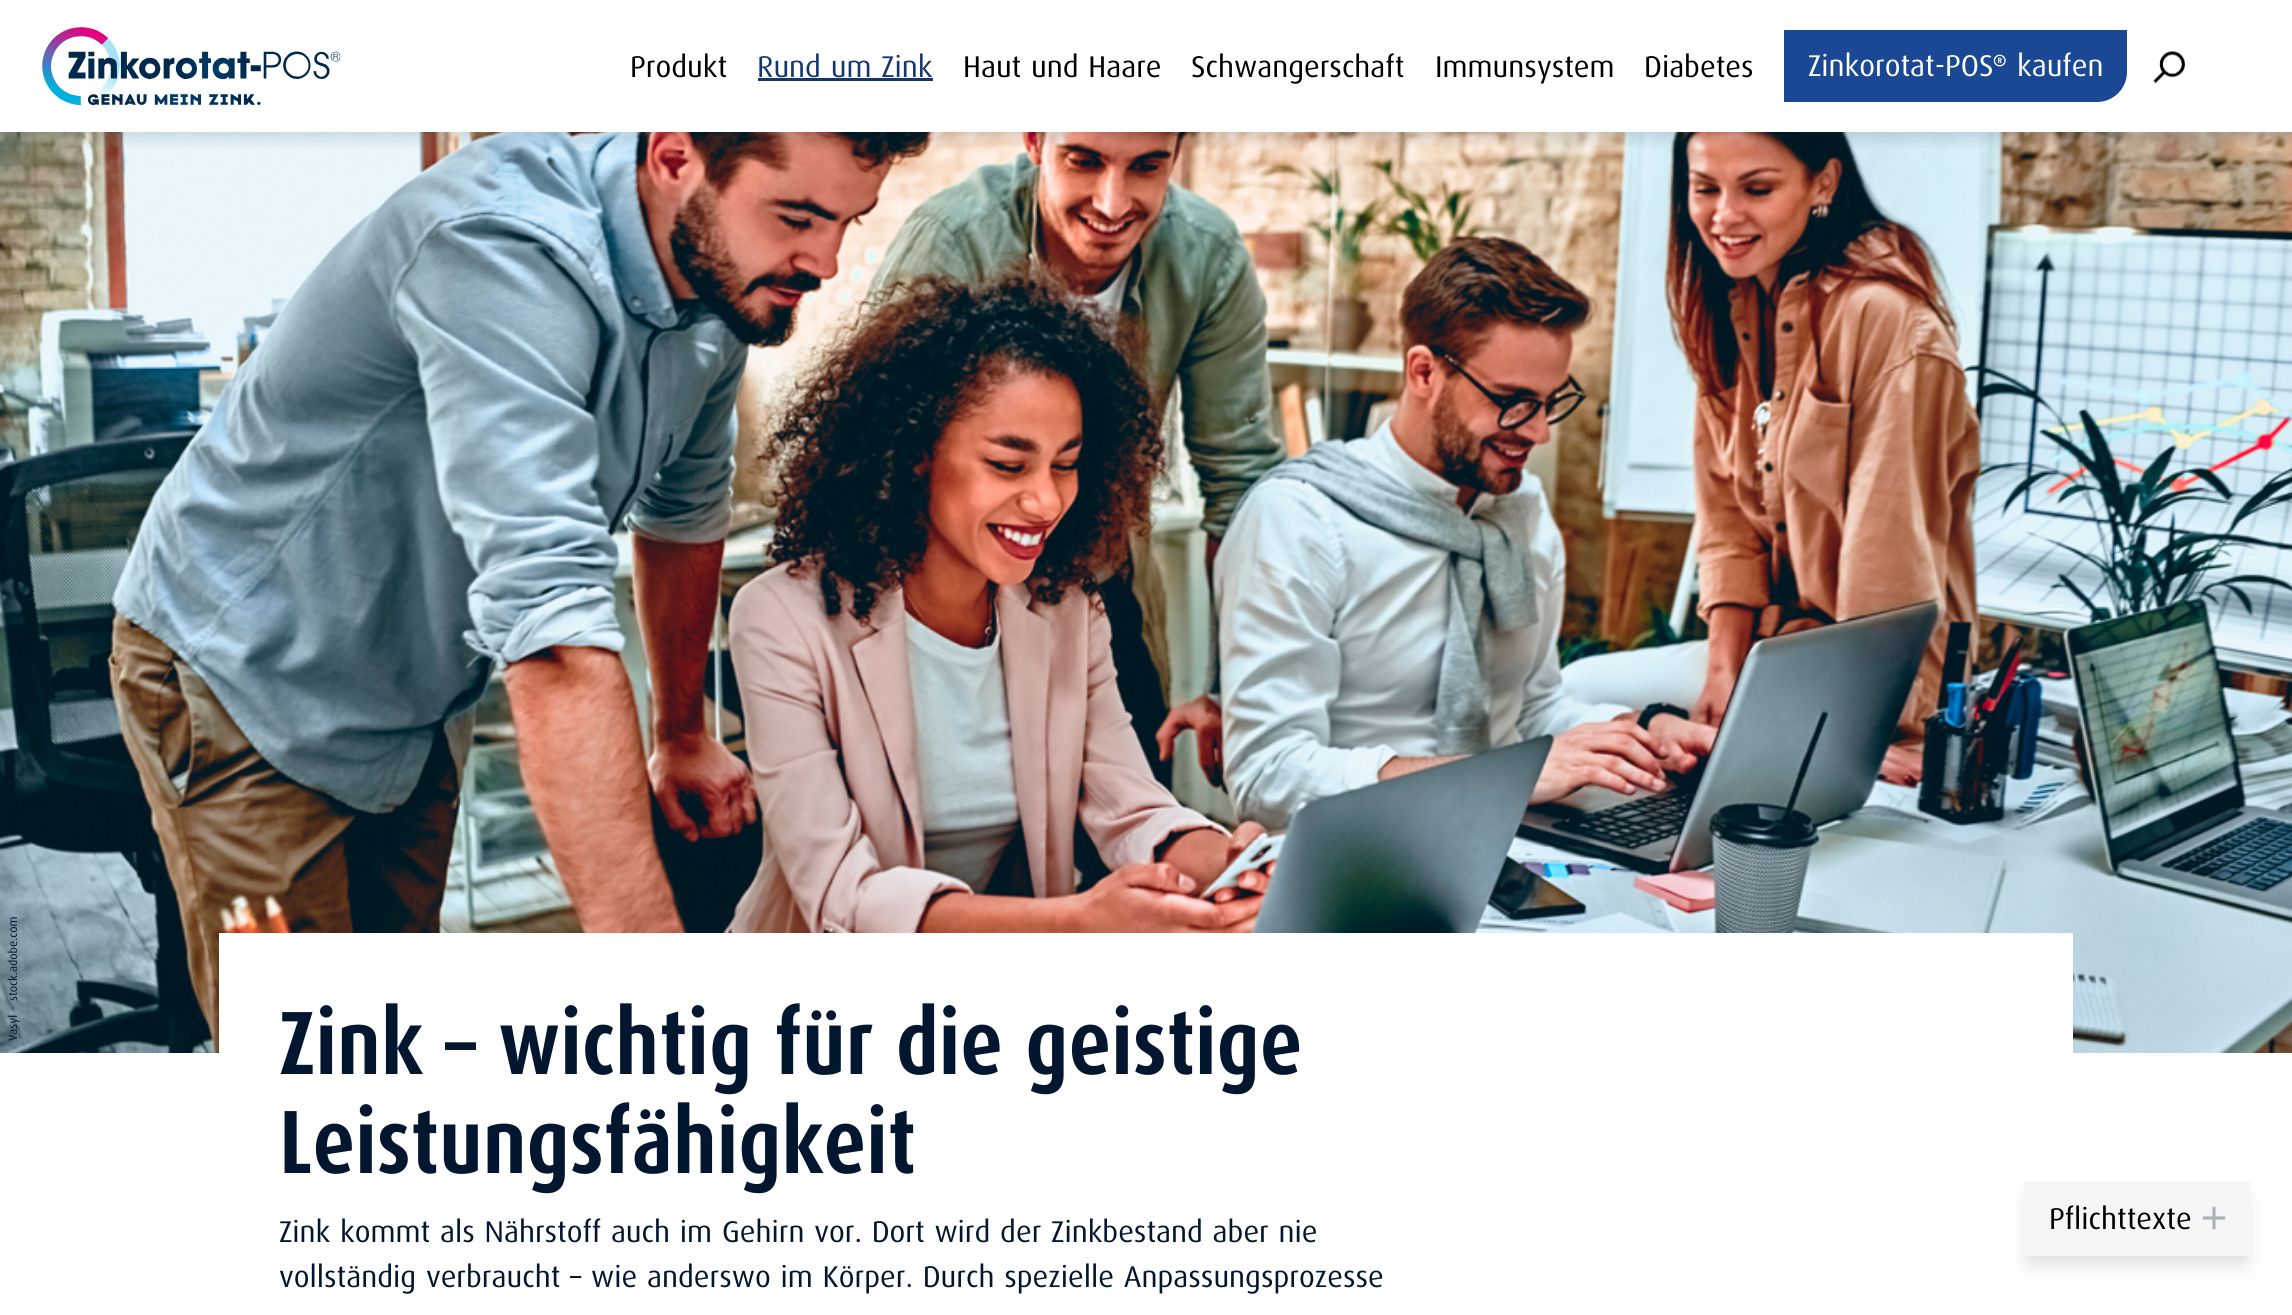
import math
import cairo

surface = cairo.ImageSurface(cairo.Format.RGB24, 2292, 1315)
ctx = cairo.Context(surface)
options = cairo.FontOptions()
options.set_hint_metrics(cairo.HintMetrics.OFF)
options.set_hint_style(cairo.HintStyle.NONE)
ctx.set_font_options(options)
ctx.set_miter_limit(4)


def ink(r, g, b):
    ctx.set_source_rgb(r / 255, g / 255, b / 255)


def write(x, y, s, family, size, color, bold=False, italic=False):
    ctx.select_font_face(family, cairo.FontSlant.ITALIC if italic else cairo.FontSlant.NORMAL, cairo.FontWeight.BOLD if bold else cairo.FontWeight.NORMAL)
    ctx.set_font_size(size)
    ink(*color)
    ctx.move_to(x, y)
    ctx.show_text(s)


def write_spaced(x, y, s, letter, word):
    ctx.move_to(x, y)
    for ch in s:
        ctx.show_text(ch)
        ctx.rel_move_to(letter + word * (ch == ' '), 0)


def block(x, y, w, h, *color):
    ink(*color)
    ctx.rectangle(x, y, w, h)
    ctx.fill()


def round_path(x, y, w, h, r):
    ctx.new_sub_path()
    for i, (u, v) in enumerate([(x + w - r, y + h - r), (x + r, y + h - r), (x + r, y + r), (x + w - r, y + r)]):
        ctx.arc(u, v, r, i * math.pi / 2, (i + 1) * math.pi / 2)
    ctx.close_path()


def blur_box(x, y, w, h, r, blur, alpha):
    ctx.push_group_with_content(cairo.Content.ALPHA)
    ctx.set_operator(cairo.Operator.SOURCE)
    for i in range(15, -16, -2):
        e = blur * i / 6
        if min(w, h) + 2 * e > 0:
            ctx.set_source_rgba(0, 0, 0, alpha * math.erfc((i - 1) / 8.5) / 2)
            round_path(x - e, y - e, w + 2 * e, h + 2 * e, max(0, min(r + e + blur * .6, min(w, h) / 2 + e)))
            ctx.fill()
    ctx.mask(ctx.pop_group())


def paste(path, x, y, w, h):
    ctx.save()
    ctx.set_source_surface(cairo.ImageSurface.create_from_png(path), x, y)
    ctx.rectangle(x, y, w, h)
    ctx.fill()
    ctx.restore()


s1 = dict(family="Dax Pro", size=30, color=(0, 0, 0))
s2 = dict(family="Dax Pro", size=30, color=(255, 255, 255))
s3 = dict(family="Barlow Medium", size=30, color=(255, 255, 255))
s4 = dict(family="Dax Pro", size=90, color=(2, 23, 47), bold=True)

ink(255, 255, 255)
ctx.paint()
paste("pic3.png", 0, 132, 2292, 921)
ctx.save()
ctx.rectangle(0, 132, 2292, 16)
ctx.clip()
ink(2, 23, 47)
blur_box(0, 5, 2292, 132, 0, 9, 0.17)
ctx.restore()
paste("pic1.png", 42, 27, 299, 78)
write(630, 77, "Produkt", **s1)
ink(20, 55, 114)
write_spaced(757, 77, "Rund um Zink", 0, 1.5)
block(758, 78, 175, 3, 20, 55, 114)
ink(0, 0, 0)
write_spaced(963, 77, "Haut und Haare", 0, 1.5)
write(1191, 77, "Schwangerschaft", **s1)
write(1435, 77, "Immunsystem", **s1)
write(1644, 77, "Diabetes", **s1)
ink(26, 72, 149)
ctx.new_path()
ctx.move_to(1784, 30)
ctx.line_to(2127, 30)
ctx.line_to(2127, 72)
ctx.curve_to(2127, 88.5, 2113.5, 102, 2097, 102)
ctx.line_to(1784, 102)
ctx.close_path()
ctx.fill()
write(1808, 76, "Zinkorotat-POS", **s2)
write(1993, 76, "®", **s3)
write(2017, 76, "kaufen", **s2)
paste("pic2.png", 2153, 51, 32, 33)
ctx.set_font_size(12)
ink(2, 23, 47)
ctx.save()
ctx.translate(17, 1041)
ctx.rotate(-90 * math.pi / 180)
write_spaced(0, 0, "Vasyl - stock.adobe.com", 0, 1.5)
ctx.restore()
block(219, 933, 1854, 120, 255, 255, 255)
ctx.select_font_face("Dax Pro", cairo.FontSlant.NORMAL, cairo.FontWeight.BOLD)
ctx.set_font_size(90)
ink(2, 23, 47)
write_spaced(279, 1074, "Zink – wichtig für die geistige", 0, 1.5)
write(279, 1173, "Leistungsfähigkeit", **s4)
ctx.select_font_face("Dax Pro")
ctx.set_font_size(30)
write_spaced(279, 1242, "Zink kommt als Nährstoff auch im Gehirn vor. Dort wird der Zinkbestand aber nie", 0, 1.5)
write_spaced(279, 1287, "vollständig verbraucht – wie anderswo im Körper. Durch spezielle Anpassungsprozesse", 0, 1.5)
ink(0, 0, 0)
blur_box(2027, 1190, 220, 69, 0, 4.5, 0.05)
blur_box(2028, 1200, 218, 66, 0, 11, 0.1)
block(2024, 1181, 226, 75, 246, 246, 246)
write(2049, 1229, "Pflichttexte", **s1)
paste("pic4.png", 2202, 1206, 24, 24)
surface.write_to_png("screenshot.png")
